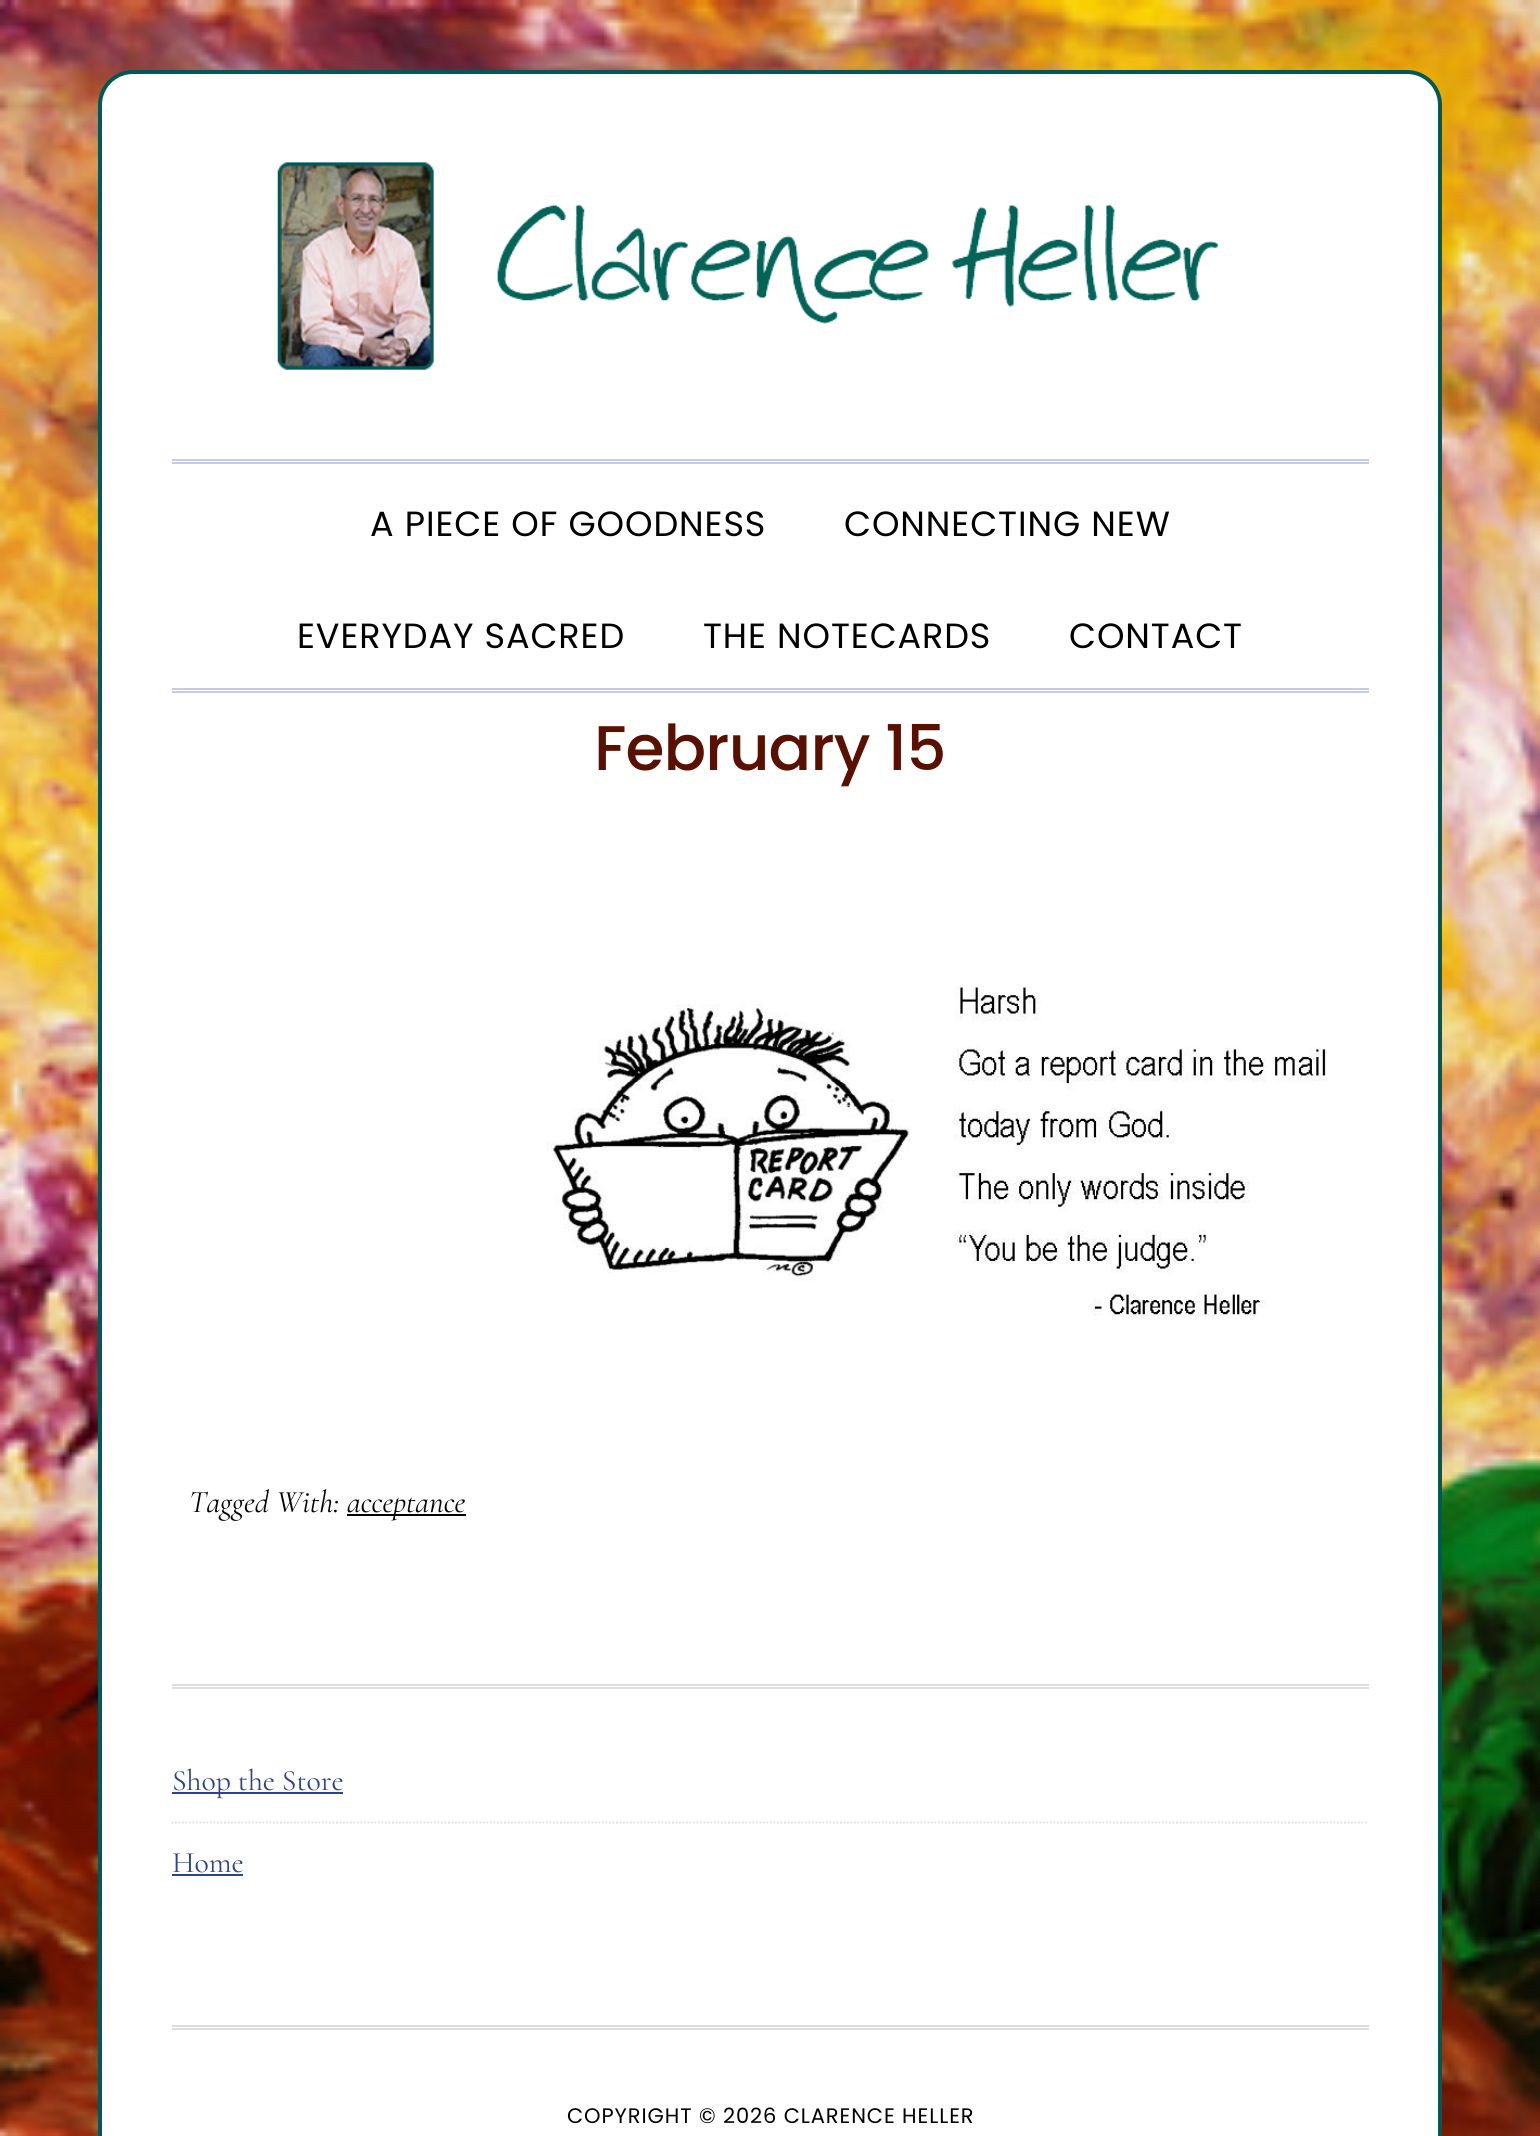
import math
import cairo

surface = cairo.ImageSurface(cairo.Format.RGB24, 1540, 2136)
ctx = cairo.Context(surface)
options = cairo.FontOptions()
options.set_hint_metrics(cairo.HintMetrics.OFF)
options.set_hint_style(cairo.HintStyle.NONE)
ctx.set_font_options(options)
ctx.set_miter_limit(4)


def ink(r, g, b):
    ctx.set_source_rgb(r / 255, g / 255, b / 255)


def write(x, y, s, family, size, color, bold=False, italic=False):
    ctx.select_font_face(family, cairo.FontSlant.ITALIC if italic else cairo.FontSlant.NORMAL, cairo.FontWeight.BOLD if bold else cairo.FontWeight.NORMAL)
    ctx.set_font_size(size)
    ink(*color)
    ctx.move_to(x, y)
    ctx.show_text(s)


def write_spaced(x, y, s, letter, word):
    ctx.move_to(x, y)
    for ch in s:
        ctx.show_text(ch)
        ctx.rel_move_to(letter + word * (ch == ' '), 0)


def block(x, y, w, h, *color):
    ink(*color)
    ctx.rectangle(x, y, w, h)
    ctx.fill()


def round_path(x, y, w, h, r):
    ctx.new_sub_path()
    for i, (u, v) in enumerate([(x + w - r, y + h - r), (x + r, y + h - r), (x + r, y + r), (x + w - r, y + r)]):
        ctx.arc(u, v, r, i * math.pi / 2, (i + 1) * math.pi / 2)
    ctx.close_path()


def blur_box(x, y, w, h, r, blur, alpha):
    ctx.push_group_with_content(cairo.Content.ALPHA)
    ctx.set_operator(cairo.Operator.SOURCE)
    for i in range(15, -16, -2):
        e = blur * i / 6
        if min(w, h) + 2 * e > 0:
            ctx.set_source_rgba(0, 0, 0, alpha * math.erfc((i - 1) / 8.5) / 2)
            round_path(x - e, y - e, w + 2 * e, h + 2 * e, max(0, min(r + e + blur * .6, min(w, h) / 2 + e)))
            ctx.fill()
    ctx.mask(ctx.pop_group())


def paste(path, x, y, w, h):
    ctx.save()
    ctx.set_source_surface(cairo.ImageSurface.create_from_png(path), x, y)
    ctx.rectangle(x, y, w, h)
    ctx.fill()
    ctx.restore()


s1 = dict(family="Cormorant", size=31.5, color=(0, 0, 0), italic=True)
s2 = dict(family="Cormorant", size=29.75, color=(42, 67, 140))

ink(255, 255, 255)
ctx.paint()
paste("pic1.png", 0, 0, 1540, 2136)
ink(0, 0, 0)
blur_box(98, 70, 1344, 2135, 35, 70, 0.05)
ink(255, 255, 255)
round_path(100, 72, 1340, 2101, 33)
ctx.fill_preserve()
ink(2, 88, 87)
ctx.set_line_width(4)
ctx.stroke()
paste("pic2.png", 277, 162, 942, 208)
block(172, 459, 1197, 2, 196, 204, 230)
block(172, 462, 1197, 2, 196, 204, 230)
block(172, 688, 1197, 2, 196, 204, 230)
block(172, 691, 1197, 2, 196, 204, 230)
ctx.select_font_face("Poppins")
ctx.set_font_size(35)
ink(0, 0, 0)
write_spaced(370, 536, "A PIECE OF GOODNESS", 0.9, 0)
write_spaced(844, 536, "CONNECTING NEW", 0.9, 0)
write_spaced(297, 648, "EVERYDAY SACRED", 0.9, 0)
write_spaced(703, 648, "THE NOTECARDS", 0.9, 0)
write_spaced(1069, 648, "CONTACT", 0.9, 0)
ctx.select_font_face("Poppins Medium")
ctx.set_font_size(63)
ink(89, 16, 0)
write_spaced(594, 770, "February 15", -0.9, 0)
paste("pic3.png", 546, 986, 781, 331)
write(189, 1512, "Tagged With:", **s1)
block(347, 1514, 119, 2, 0, 0, 0)
write(347, 1512, "acceptance", **s1)
block(172, 1684, 1197, 2, 221, 221, 221)
block(172, 1687, 1197, 2, 221, 221, 221)
ctx.new_path()
ctx.move_to(171.5, 1822.5)
ctx.line_to(1368.5, 1822.5)
ctx.set_line_width(1.8)
ctx.set_dash([1.75, 1.75])
ctx.stroke()
block(172, 1792, 171, 2, 42, 67, 140)
write(172, 1790, "Shop the Store", **s2)
write(172, 1872, "Home", **s2)
block(172, 1874, 71, 2, 42, 67, 140)
block(172, 2025, 1197, 2, 221, 221, 221)
block(172, 2028, 1197, 2, 221, 221, 221)
ctx.select_font_face("Poppins")
ctx.set_font_size(21)
ink(0, 0, 0)
write_spaced(567, 2123, "COPYRIGHT © 2026 CLARENCE HELLER", 0.9, 0)
surface.write_to_png("screenshot.png")
